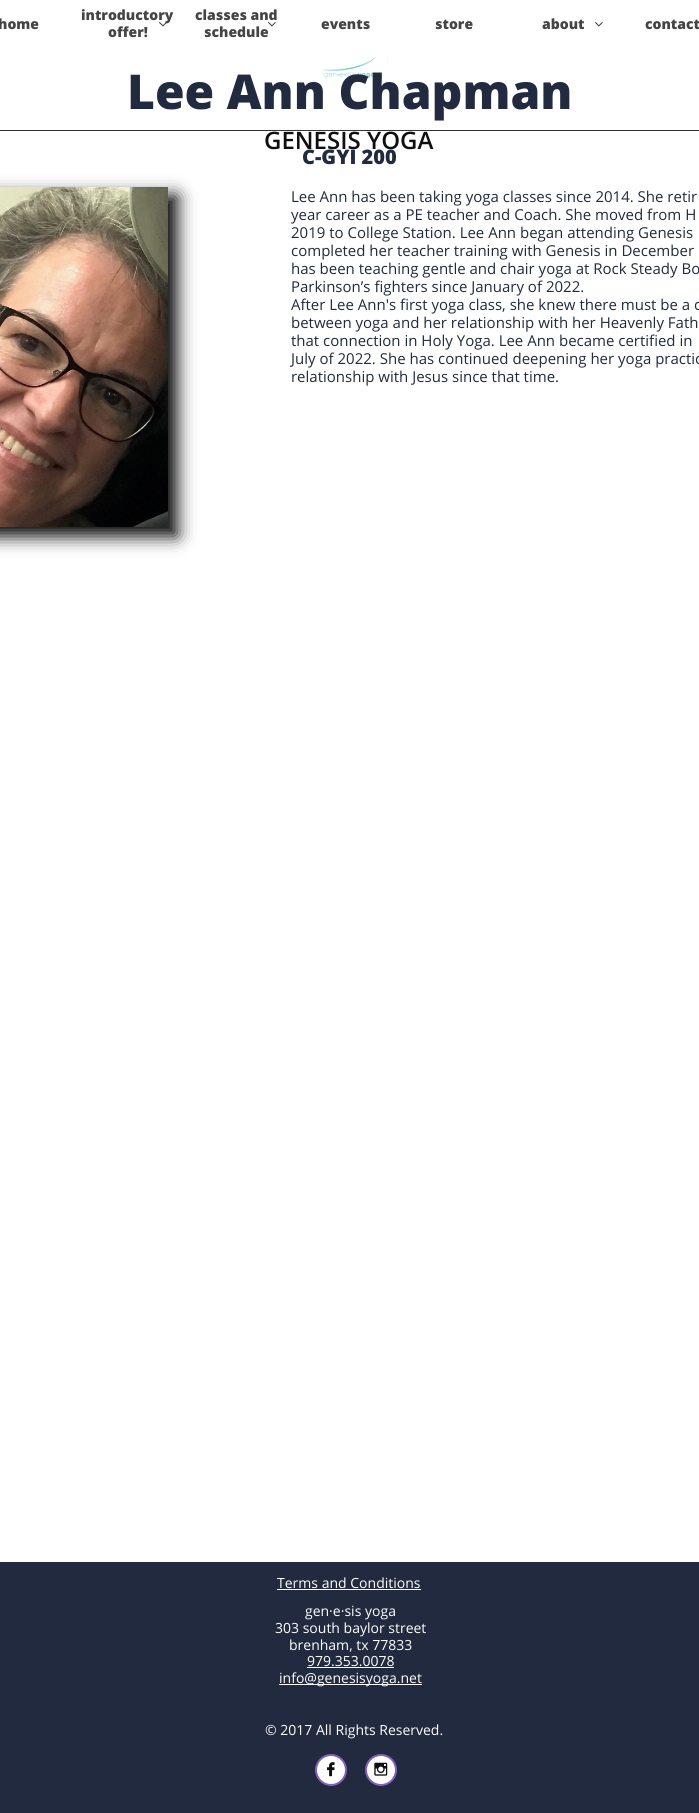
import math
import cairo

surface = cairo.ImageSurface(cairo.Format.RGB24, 699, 1813)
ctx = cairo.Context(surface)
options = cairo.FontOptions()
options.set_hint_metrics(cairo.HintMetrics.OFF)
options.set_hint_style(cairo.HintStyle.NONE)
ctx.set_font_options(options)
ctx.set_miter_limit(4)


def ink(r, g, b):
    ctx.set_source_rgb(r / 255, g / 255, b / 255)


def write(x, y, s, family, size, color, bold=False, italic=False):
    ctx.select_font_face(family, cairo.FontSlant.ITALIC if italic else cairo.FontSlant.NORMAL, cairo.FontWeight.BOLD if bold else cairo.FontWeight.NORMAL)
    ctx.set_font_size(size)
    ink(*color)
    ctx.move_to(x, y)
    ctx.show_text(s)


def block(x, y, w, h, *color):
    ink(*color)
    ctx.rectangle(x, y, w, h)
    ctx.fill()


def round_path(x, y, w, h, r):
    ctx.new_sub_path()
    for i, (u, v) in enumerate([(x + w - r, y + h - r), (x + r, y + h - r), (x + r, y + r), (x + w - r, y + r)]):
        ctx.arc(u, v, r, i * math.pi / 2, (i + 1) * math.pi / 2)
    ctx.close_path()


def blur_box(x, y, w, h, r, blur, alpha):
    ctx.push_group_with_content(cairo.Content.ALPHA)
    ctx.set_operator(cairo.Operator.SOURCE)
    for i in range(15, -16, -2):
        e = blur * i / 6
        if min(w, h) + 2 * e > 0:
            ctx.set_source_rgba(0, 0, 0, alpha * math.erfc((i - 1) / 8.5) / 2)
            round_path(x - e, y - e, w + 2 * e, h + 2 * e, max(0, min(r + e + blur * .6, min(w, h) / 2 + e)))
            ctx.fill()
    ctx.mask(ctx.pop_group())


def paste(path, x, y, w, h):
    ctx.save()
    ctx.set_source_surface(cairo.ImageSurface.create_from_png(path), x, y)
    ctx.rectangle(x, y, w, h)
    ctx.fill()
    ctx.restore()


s1 = dict(family="Open Sans ExtraBold", size=14, color=(68, 68, 68))
s2 = dict(family="Open Sans SemiBold", size=24, color=(15, 15, 15))
s3 = dict(family="Open Sans ExtraBold", size=48, color=(33, 42, 63))
s4 = dict(family="Open Sans ExtraBold", size=20, color=(33, 42, 63))
s5 = dict(family="Open Sans", size=15, color=(33, 42, 63))
s6 = dict(family="Open Sans", size=14, color=(255, 255, 255))

ink(255, 255, 255)
ctx.paint()
write(-2, 29, "home", **s1)
write(81, 20, "introductory", **s1)
write(108, 37, "offer!", **s1)
paste("pic1.png", 159, 22, 8, 5)
write(195, 20, "classes and", **s1)
write(204, 37, "schedule", **s1)
paste("pic2.png", 268, 22, 8, 5)
write(321, 29, "events", **s1)
write(435, 29, "store", **s1)
write(542, 29, "about", **s1)
paste("pic2.png", 595, 22, 8, 5)
write(645, 29, "contact", **s1)
paste("pic3.png", 322, 56, 66, 23)
write(264, 149, "GENESIS YOGA", **s2)
block(0, 130, 699, 1, 51, 51, 51)
write(127, 109, "Lee Ann Chapman", **s3)
write(302, 164, "C-GYI 200", **s4)
paste("pic4.png", 0, 187, 168, 340)
ctx.save()
ctx.set_fill_rule(cairo.FillRule.EVEN_ODD)
ctx.new_path()
ctx.move_to(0, 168)
ctx.line_to(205, 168)
ctx.line_to(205, 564)
ctx.line_to(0, 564)
ctx.close_path()
ctx.move_to(-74, 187)
ctx.line_to(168, 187)
ctx.line_to(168, 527)
ctx.line_to(-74, 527)
ctx.close_path()
ctx.clip()
ink(0, 0, 0)
blur_box(-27, 196, 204, 340, 0, 9, 1)
ctx.restore()
write(291, 202, "Lee Ann has been taking yoga classes since 2014. She retir", **s5)
write(291, 220, "year career as a PE teacher and Coach. She moved from H", **s5)
write(291, 238, "2019 to College Station. Lee Ann began attending Genesis", **s5)
write(291, 256, "completed her teacher training with Genesis in December", **s5)
write(291, 274, "has been teaching gentle and chair yoga at Rock Steady Bo", **s5)
write(291, 292, "Parkinson’s fighters since January of 2022.", **s5)
write(291, 310, "After Lee Ann's first yoga class, she knew there must be a c", **s5)
write(291, 328, "between yoga and her relationship with her Heavenly Fath", **s5)
write(291, 346, "that connection in Holy Yoga. Lee Ann became certified in", **s5)
write(291, 364, "July of 2022. She has continued deepening her yoga practic", **s5)
write(291, 382, "relationship with Jesus since that time.", **s5)
block(0, 1562, 699, 251, 33, 42, 63)
write(277, 1588, "Terms and Conditions", **s6)
block(277, 1589, 144, 1, 255, 255, 255)
write(305, 1616, "gen·e·sis yoga", **s6)
write(275, 1633, "303 south baylor street", **s6)
write(289, 1650, "brenham, tx 77833", **s6)
write(307, 1666, "979.353.0078", **s6)
block(307, 1667, 87, 1, 255, 255, 255)
block(279, 1684, 143, 1, 255, 255, 255)
write(279, 1683, "info@genesisyoga.net", **s6)
write(265, 1735, "© 2017 All Rights Reserved.", **s6)
ctx.new_path()
ctx.arc(331, 1770, 15, 0, 2 * math.pi)
ctx.fill_preserve()
ink(131, 96, 187)
ctx.stroke()
paste("pic5.png", 327, 1762, 8, 15)
ink(255, 255, 255)
ctx.arc(381, 1770, 15, 0, 2 * math.pi)
ctx.fill_preserve()
ink(131, 96, 187)
ctx.stroke()
paste("pic6.png", 374, 1762, 14, 14)
surface.write_to_png("screenshot.png")
